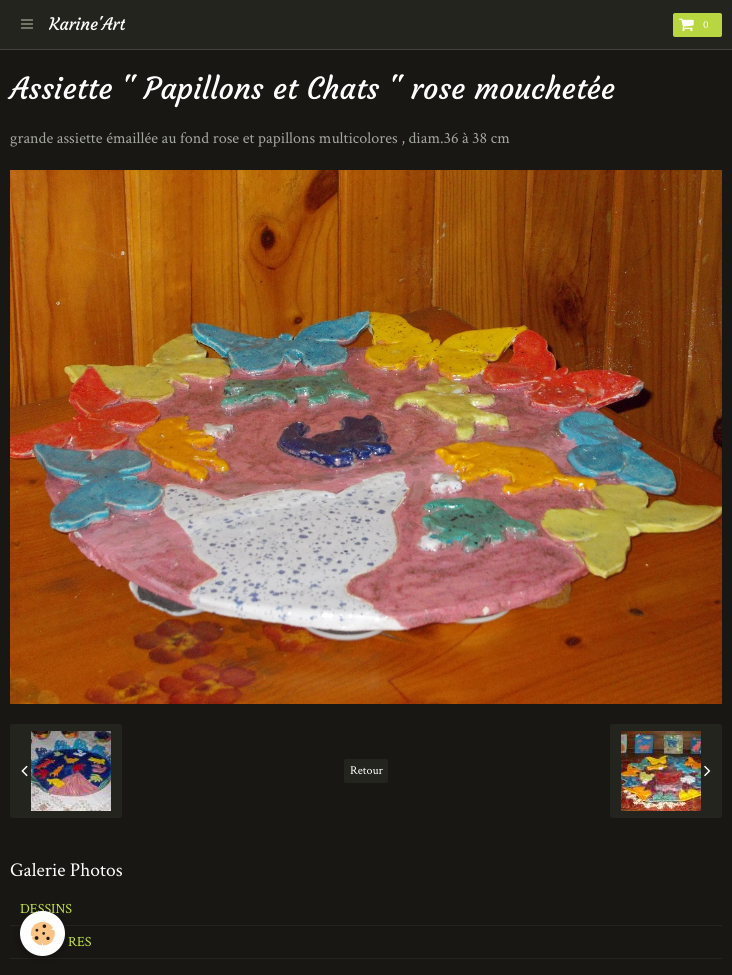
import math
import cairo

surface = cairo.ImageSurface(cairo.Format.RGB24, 732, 975)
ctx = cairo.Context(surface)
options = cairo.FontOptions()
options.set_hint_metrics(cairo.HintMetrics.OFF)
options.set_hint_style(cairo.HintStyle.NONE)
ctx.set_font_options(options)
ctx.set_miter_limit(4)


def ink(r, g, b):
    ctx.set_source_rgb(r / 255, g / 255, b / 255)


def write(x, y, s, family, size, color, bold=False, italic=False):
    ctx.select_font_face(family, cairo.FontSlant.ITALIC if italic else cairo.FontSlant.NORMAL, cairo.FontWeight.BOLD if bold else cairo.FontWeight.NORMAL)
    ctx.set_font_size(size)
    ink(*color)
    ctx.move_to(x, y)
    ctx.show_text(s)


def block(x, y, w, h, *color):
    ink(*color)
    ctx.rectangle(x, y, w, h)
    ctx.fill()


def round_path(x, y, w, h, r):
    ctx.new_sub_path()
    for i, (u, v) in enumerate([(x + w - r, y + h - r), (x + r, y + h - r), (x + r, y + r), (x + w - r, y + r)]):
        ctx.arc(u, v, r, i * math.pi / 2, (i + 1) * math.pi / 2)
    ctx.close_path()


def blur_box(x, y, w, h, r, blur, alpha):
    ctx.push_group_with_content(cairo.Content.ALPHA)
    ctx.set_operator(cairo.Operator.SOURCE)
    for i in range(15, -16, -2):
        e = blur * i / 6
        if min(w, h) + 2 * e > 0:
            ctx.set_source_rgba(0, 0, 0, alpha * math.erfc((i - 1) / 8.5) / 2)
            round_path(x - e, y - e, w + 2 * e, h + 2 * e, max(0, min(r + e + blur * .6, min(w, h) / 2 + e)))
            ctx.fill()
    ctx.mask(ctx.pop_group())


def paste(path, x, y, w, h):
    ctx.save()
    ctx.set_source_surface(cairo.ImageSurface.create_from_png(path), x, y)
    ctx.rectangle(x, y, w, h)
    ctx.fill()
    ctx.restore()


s1 = dict(family="Courgette", size=17, color=(255, 255, 255))
s2 = dict(family="Crimson Text", size=11, color=(255, 255, 255))
s3 = dict(family="Courgette", size=30, color=(255, 255, 255))
s4 = dict(family="Crimson Text", size=16.1, color=(164, 167, 157))
s5 = dict(family="Crimson Text", size=12, color=(255, 255, 255))
s6 = dict(family="Crimson Text", size=19.5, color=(255, 255, 255))
s7 = dict(family="Crimson Text", size=14, color=(199, 231, 68))

ink(24, 23, 20)
ctx.paint()
block(0, 0, 732, 49, 36, 36, 31)
block(0, 49, 732, 1, 65, 65, 61)
paste("pic1.png", 21, 19, 12, 10)
ctx.save()
ctx.rectangle(49, 13, 76, 23)
ctx.clip()
write(49, 30, "Karine'Art", **s1)
ctx.restore()
ink(184, 214, 63)
round_path(673, 13, 49, 24, 2)
ctx.fill()
paste("pic2.png", 679, 18, 15, 14)
write(703, 28, "0", **s2)
write(10, 99, "Assiette \" Papillons et Chats \" rose mouchetée", **s3)
write(10, 143, "grande assiette émaillée au fond rose et papillons multicolores , diam.36 à 38 cm", **s4)
paste("pic3.png", 10, 170, 712, 534)
ink(36, 36, 31)
round_path(10, 724, 112, 94, 2.5)
ctx.fill()
paste("pic4.png", 21, 765, 7, 12)
paste("pic5.png", 31, 731, 80, 80)
round_path(344.5, 759.5, 43, 23, 1.5)
ctx.fill_preserve()
ctx.set_line_width(1)
ctx.stroke()
write(350, 774, "Retour", **s5)
ink(36, 36, 31)
round_path(610, 724, 112, 94, 2.5)
ctx.fill()
paste("pic6.png", 621, 731, 80, 80)
paste("pic7.png", 704, 765, 7, 12)
write(10, 876, "Galerie Photos", **s6)
block(10, 925, 712, 1, 37, 35, 31)
write(20, 913, "DESSINS", **s7)
block(10, 958, 712, 1, 37, 35, 31)
write(68, 946, "RES", **s7)
ink(0, 0, 0)
blur_box(20, 914, 45, 45, 22.5, 5, 0.24)
ink(255, 255, 255)
ctx.arc(42.5, 933.5, 22.5, 0, 2 * math.pi)
ctx.fill()
paste("pic8.png", 30, 921, 25, 25)
surface.write_to_png("screenshot.png")
